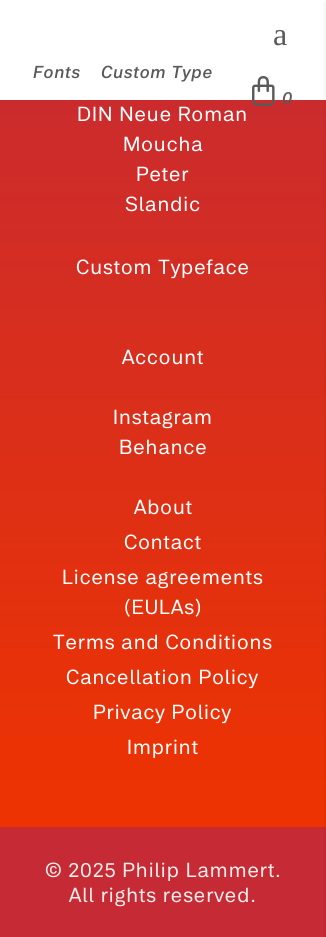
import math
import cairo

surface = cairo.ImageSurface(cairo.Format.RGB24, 326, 937)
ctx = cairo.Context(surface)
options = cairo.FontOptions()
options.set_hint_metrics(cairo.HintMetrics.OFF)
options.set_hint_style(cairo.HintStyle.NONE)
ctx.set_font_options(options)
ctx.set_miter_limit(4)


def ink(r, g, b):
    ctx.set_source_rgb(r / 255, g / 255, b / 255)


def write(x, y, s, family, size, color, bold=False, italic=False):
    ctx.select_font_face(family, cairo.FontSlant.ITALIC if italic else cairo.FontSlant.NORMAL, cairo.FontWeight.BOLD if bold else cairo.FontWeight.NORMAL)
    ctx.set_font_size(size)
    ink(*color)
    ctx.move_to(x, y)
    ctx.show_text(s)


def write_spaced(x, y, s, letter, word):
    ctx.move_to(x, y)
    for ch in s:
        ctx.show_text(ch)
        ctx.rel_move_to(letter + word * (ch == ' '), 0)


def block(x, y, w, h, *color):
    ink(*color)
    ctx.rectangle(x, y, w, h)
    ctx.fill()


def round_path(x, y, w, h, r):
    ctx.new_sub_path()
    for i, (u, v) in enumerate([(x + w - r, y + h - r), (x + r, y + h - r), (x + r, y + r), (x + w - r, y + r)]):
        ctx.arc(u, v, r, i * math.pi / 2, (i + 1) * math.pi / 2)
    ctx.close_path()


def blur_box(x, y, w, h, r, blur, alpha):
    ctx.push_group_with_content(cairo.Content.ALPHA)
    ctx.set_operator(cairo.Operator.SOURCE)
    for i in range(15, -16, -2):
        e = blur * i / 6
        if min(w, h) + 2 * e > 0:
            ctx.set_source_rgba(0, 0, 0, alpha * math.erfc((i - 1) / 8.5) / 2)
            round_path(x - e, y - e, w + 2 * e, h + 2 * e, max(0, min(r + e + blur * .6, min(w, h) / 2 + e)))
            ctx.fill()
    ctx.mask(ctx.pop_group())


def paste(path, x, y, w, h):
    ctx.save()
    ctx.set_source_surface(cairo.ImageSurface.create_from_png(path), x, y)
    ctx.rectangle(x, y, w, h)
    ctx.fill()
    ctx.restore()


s1 = dict(family="Liberation Serif", size=32, color=(89, 89, 89))

ink(255, 255, 255)
ctx.paint()
write(273, 45, "a", **s1)
gradient = cairo.LinearGradient(163, -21, 163, 827)
gradient.add_color_stop_rgba(0, 0.776, 0.165, 0.208, 1)
gradient.add_color_stop_rgba(1, 0.933, 0.2, 0, 1)
ctx.set_source(gradient)
ctx.rectangle(0, 100, 326, 727)
ctx.fill()
block(0, 827, 326, 110, 198, 42, 53)
ink(0, 0, 0)
blur_box(326, 2, 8, 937, 0, 2.5, 0.1)
ctx.select_font_face("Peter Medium", cairo.FontSlant.ITALIC)
ctx.set_font_size(17)
ink(89, 89, 89)
write_spaced(33, 78, "Fonts", 0.8, 0)
write_spaced(101, 78, "Custom Type", 0.8, 0)
paste("pic1.png", 252, 76, 23, 30)
write_spaced(282, 104, "0", 0.8, 0)
ctx.select_font_face("Peter")
ctx.set_font_size(20)
ink(255, 255, 255)
write_spaced(77, 121, "DIN Neue Roman", 1, 0)
write_spaced(123, 151, "Moucha", 1, 0)
write_spaced(136, 181, "Peter", 1, 0)
write_spaced(125, 211, "Slandic", 1, 0)
write_spaced(76, 274, "Custom Typeface", 1, 0)
write_spaced(122, 364, "Account", 1, 0)
write_spaced(113, 424, "Instagram", 1, 0)
write_spaced(119, 454, "Behance", 1, 0)
write_spaced(134, 514, "About", 1, 0)
write_spaced(124, 549, "Contact", 1, 0)
write_spaced(62, 584, "License agreements", 1, 0)
write_spaced(124, 614, "(EULAs)", 1, 0)
write_spaced(53, 649, "Terms and Conditions", 1, 0)
write_spaced(66, 684, "Cancellation Policy", 1, 0)
write_spaced(93, 719, "Privacy Policy", 1, 0)
write_spaced(127, 754, "Imprint", 1, 0)
ink(247, 238, 236)
write_spaced(45, 877, "© 2025 Philip Lammert.", 1, 0)
write_spaced(69, 902, "All rights reserved.", 1, 0)
surface.write_to_png("screenshot.png")
